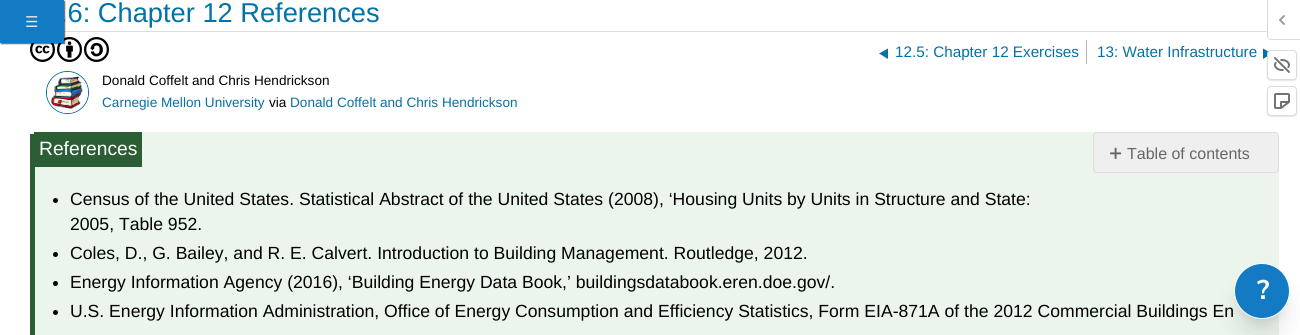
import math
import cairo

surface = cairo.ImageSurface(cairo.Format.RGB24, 1300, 335)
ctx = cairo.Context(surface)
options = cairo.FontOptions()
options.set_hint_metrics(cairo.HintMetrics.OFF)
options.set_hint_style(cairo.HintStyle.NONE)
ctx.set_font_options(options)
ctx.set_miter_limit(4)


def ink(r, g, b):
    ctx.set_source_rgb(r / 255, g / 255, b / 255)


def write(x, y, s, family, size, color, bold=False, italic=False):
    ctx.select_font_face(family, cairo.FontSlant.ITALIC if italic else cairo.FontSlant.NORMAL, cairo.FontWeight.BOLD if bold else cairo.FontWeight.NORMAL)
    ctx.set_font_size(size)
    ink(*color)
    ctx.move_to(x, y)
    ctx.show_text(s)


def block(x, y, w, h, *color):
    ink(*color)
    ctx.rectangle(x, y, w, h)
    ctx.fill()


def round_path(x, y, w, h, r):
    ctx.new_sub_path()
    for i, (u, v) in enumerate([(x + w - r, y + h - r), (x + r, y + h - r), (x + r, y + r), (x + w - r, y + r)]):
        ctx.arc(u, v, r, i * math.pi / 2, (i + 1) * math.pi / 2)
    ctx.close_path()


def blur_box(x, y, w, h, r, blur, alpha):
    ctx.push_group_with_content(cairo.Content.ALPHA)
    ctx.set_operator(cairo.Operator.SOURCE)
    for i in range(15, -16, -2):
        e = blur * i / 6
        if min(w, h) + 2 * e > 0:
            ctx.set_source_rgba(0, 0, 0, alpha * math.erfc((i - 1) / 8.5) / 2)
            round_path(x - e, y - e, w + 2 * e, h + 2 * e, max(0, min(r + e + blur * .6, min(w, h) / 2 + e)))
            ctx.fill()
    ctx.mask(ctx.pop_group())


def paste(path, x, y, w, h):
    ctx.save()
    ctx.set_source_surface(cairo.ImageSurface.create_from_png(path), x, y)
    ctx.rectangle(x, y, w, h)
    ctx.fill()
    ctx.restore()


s1 = dict(family="Liberation Sans", size=27.25, color=(3, 114, 166))
s2 = dict(family="DejaVu Sans", size=15, color=(229, 229, 229))
s3 = dict(family="Liberation Sans", size=15.25, color=(3, 114, 166))
s4 = dict(family="Liberation Sans", size=13.6, color=(0, 0, 0))
s5 = dict(family="Liberation Sans", size=13.6, color=(3, 114, 166))
s6 = dict(family="Liberation Sans", size=19.25, color=(255, 255, 255))
s7 = dict(family="Liberation Sans", size=17.6, color=(0, 0, 0))
s8 = dict(family="Liberation Sans", size=16, color=(102, 102, 102))
s9 = dict(family="Nunito Sans", size=27, color=(255, 255, 255), bold=True)

ink(255, 255, 255)
ctx.paint()
block(64, 31, 1203, 1, 221, 221, 221)
paste("pic1.png", 30, 43, 25, 19)
paste("pic2.png", 57, 37, 25, 25)
ink(0, 0, 0)
blur_box(1, 1, 64, 43, 0, 0.5, 0.6)
write(60, 22, ".6: Chapter 12 References", **s1)
block(0, 0, 64, 43, 18, 123, 196)
write(25, 27, "☰", **s2)
paste("pic3.png", 84, 37, 25, 25)
block(1086, 40, 1, 24, 180, 180, 180)
ink(3, 114, 166)
ctx.new_path()
ctx.move_to(888, 48.5)
ctx.line_to(888, 59)
ctx.line_to(879, 53.5)
ctx.close_path()
ctx.fill()
write(895, 57, "12.5: Chapter 12 Exercises", **s3)
write(1097, 57, "13: Water Infrastructure", **s3)
ctx.new_path()
ctx.move_to(1263, 48.5)
ctx.line_to(1263, 59)
ctx.line_to(1272, 53.5)
ctx.close_path()
ctx.fill()
ctx.arc(67.5, 92.5, 21, 0, 2 * math.pi)
ctx.set_line_width(1)
ctx.stroke()
paste("pic4.png", 47, 72, 41, 41)
write(102, 85, "Donald Coffelt and Chris Hendrickson", **s4)
write(102, 107, "Carnegie Mellon University", **s5)
write(269, 107, "via", **s4)
write(290, 107, "Donald Coffelt and Chris Hendrickson", **s5)
ink(235, 245, 235)
ctx.new_path()
ctx.move_to(34, 132)
ctx.line_to(1271, 132)
ctx.curve_to(1275.5, 132, 1279, 135.5, 1279, 140)
ctx.line_to(1279, 335)
ctx.curve_to(1279, 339.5, 1275.5, 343, 1271, 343)
ctx.line_to(34, 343)
ctx.curve_to(32, 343, 30, 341, 30, 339)
ctx.line_to(30, 136)
ctx.curve_to(30, 134, 32, 132, 34, 132)
ctx.close_path()
ctx.fill()
block(30, 134, 5, 201, 44, 94, 54)
block(34, 132, 108, 35, 44, 94, 54)
write(39, 155, "References", **s6)
ink(0, 0, 0)
ctx.new_path()
ctx.arc(55.5, 200.5, 2.5, 0, 2 * math.pi)
ctx.fill()
write(70, 205, "Census of the United States. Statistical Abstract of the United States (2008), ‘Housing Units by Units in Structure and State:", **s7)
write(70, 230, "2005, Table 952.", **s7)
ctx.new_path()
ctx.arc(55.5, 254.5, 2.5, 0, 2 * math.pi)
ctx.fill()
write(70, 259, "Coles, D., G. Bailey, and R. E. Calvert. Introduction to Building Management. Routledge, 2012.", **s7)
ctx.new_path()
ctx.arc(55.5, 283.5, 2.5, 0, 2 * math.pi)
ctx.fill()
write(70, 288, "Energy Information Agency (2016), ‘Building Energy Data Book,’ buildingsdatabook.eren.doe.gov/.", **s7)
ctx.new_path()
ctx.arc(55.5, 312.5, 2.5, 0, 2 * math.pi)
ctx.fill()
write(70, 317, "U.S. Energy Information Administration, Office of Energy Consumption and Efficiency Statistics, Form EIA-871A of the 2012 Commercial Buildings En", **s7)
ink(239, 239, 239)
round_path(1093.5, 132.5, 185, 40, 3.5)
ctx.fill_preserve()
ink(221, 221, 221)
ctx.stroke()
paste("pic5.png", 1110, 147, 12, 12)
write(1127, 159, "Table of contents", **s8)
ink(0, 0, 0)
blur_box(1240, 277, 44, 44, 22, 5, 0.1)
blur_box(1239, 288, 46, 46, 23, 12.5, 0.1)
ink(18, 123, 196)
ctx.arc(1262, 291, 27.5, 0, 2 * math.pi)
ctx.fill_preserve()
ink(255, 255, 255)
ctx.stroke()
write(1257, 299, "?", **s9)
ink(219, 219, 219)
ctx.set_fill_rule(cairo.FillRule.EVEN_ODD)
ctx.new_path()
ctx.move_to(1267, 0)
ctx.line_to(1300, 0)
ctx.line_to(1300, 40)
ctx.line_to(1271, 40)
ctx.curve_to(1269, 40, 1267, 38, 1267, 36)
ctx.close_path()
ctx.move_to(1268, 0)
ctx.line_to(1300, 0)
ctx.line_to(1300, 39)
ctx.line_to(1271, 39)
ctx.curve_to(1269, 39, 1268, 38, 1268, 36)
ctx.close_path()
ctx.fill()
paste("pic6.png", 1279, 15, 6, 10)
ink(0, 0, 0)
blur_box(1267, 51, 30, 30, 4, 0.5, 0.1)
ink(255, 255, 255)
round_path(1267.5, 50.5, 29, 29, 3.5)
ctx.fill_preserve()
ink(219, 219, 219)
ctx.stroke()
paste("pic7.png", 1274, 57, 16, 16)
ink(0, 0, 0)
blur_box(1267, 87, 30, 30, 4, 0.5, 0.1)
ink(255, 255, 255)
round_path(1267.5, 86.5, 29, 29, 3.5)
ctx.fill_preserve()
ink(219, 219, 219)
ctx.stroke()
paste("pic8.png", 1274, 93, 16, 16)
surface.write_to_png("screenshot.png")
